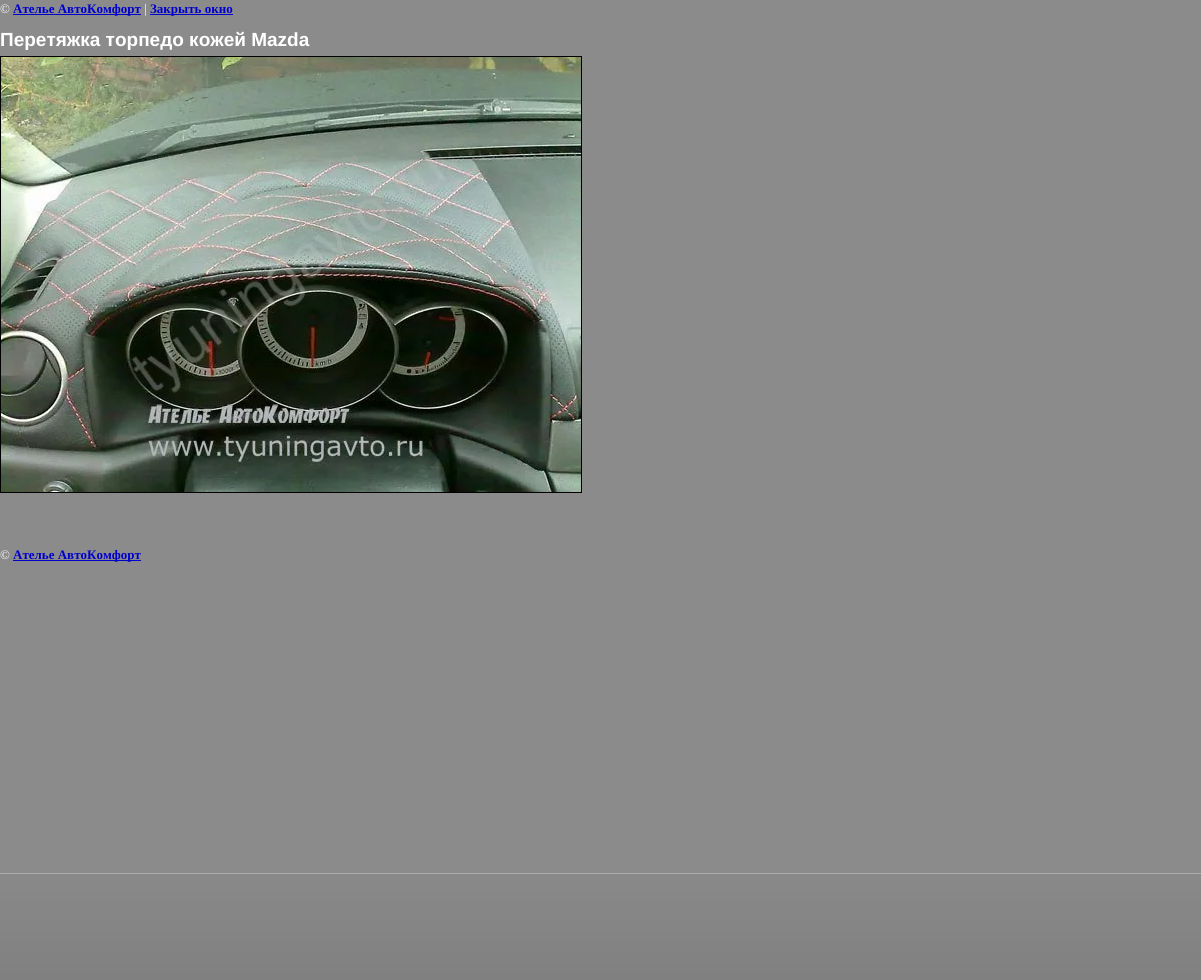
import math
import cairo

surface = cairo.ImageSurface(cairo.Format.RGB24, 1201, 980)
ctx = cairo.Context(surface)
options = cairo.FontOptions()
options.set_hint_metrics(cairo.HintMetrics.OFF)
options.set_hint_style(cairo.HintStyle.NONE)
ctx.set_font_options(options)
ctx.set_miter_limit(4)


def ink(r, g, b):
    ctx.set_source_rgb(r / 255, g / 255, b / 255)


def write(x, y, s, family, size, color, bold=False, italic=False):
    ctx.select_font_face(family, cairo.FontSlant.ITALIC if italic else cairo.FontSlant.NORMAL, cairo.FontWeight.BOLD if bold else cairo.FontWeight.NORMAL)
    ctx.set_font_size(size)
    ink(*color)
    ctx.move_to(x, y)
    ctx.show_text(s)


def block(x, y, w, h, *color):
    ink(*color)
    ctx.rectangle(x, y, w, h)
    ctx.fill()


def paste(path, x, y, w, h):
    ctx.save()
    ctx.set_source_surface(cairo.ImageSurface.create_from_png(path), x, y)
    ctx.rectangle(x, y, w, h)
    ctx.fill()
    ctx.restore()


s1 = dict(family="Liberation Serif", size=13, color=(255, 255, 255))
s2 = dict(family="Liberation Serif", size=13, color=(0, 0, 204), bold=True)
s3 = dict(family="Liberation Sans", size=19, color=(255, 255, 255), bold=True)

ink(139, 139, 139)
ctx.paint()
paste("pic1.png", 0, 873, 1201, 107)
write(0, 13, "©", **s1)
block(13, 14, 128, 1, 0, 0, 204)
write(13, 13, "Ателье АвтоКомфорт", **s2)
write(144, 13, "|", **s1)
block(150, 14, 83, 1, 0, 0, 204)
write(150, 13, "Закрыть окно", **s2)
write(0, 46, "Перетяжка торпедо кожей Mazda", **s3)
ctx.rectangle(0.5, 56.5, 581, 436)
ink(0, 0, 0)
ctx.set_line_width(1)
ctx.stroke()
paste("pic2.png", 1, 57, 580, 435)
write(0, 559, "©", **s1)
block(13, 560, 128, 1, 0, 0, 204)
write(13, 559, "Ателье АвтоКомфорт", **s2)
surface.write_to_png("screenshot.png")
